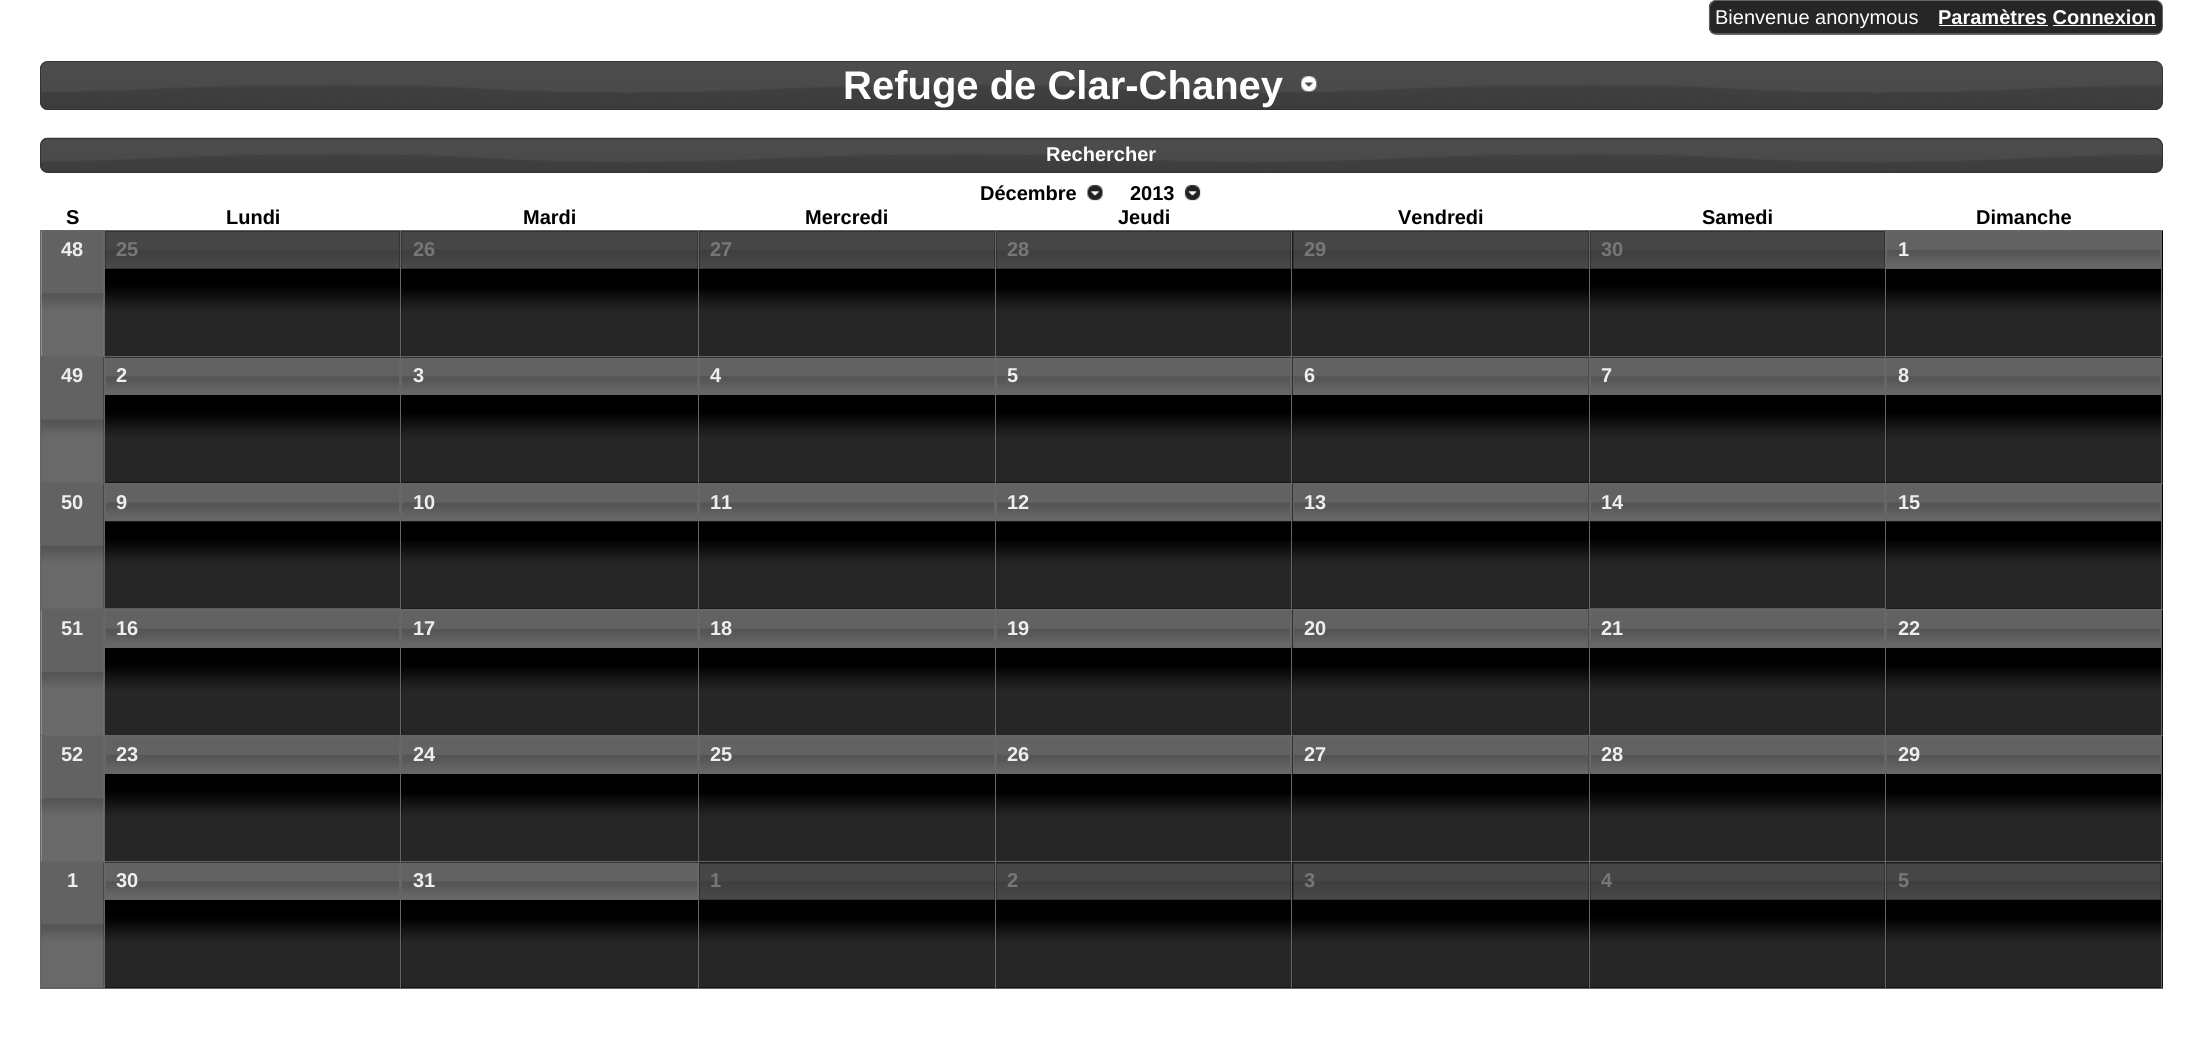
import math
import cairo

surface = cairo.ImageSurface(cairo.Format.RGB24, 2202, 1043)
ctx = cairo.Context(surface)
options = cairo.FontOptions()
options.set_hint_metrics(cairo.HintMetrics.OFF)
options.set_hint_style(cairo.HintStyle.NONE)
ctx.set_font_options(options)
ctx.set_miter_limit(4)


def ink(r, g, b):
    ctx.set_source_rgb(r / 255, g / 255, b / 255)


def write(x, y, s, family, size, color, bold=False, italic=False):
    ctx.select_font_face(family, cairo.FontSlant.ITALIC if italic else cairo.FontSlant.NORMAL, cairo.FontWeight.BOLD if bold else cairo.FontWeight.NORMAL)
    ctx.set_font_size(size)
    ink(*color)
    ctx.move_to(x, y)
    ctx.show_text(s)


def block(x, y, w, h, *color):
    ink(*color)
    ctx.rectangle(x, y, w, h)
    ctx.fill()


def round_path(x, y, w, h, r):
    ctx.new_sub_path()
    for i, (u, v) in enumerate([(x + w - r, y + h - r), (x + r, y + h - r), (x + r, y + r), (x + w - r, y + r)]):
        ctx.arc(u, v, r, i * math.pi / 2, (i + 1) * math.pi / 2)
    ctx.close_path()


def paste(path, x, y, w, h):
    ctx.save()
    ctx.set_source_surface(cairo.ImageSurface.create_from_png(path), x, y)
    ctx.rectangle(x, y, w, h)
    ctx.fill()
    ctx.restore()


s1 = dict(family="Liberation Sans", size=20, color=(255, 255, 255))
s2 = dict(family="Liberation Sans", size=20, color=(255, 255, 255), bold=True)
s3 = dict(family="Liberation Sans", size=40, color=(255, 255, 255), bold=True)
s4 = dict(family="Liberation Sans", size=20, color=(0, 0, 0), bold=True)
s5 = dict(family="Liberation Sans", size=20, color=(238, 238, 238), bold=True)
s6 = dict(family="Liberation Sans", size=20, color=(119, 119, 119), bold=True)

ink(255, 255, 255)
ctx.paint()
paste("pic1.png", 1708, 0, 455, 34)
round_path(1709.5, 0.5, 453, 34, 7.5)
ink(102, 102, 102)
ctx.set_line_width(1)
ctx.stroke()
write(1715, 24, "Bienvenue anonymous", **s1)
write(1938, 24, "Paramètres Connexion", **s2)
block(1939, 25, 109, 1, 255, 255, 255)
block(2053, 25, 103, 1, 255, 255, 255)
paste("pic2.png", 40, 61, 2123, 49)
round_path(40.5, 61.5, 2122, 48, 7.5)
ink(51, 51, 51)
ctx.stroke()
write(843, 99, "Refuge de Clar-Chaney", **s3)
paste("pic3.png", 1301, 76, 16, 16)
paste("pic4.png", 40, 137, 2123, 36)
round_path(40.5, 138.5, 2122, 34, 7.5)
ink(51, 51, 51)
ctx.stroke()
write(1046, 161, "Rechercher", **s2)
write(980, 200, "Décembre", **s4)
paste("pic5.png", 1087, 184, 16, 17)
write(1130, 200, "2013", **s4)
paste("pic6.png", 1184, 184, 17, 17)
write(66, 224, "S", **s4)
write(226, 224, "Lundi", **s4)
write(523, 224, "Mardi", **s4)
write(805, 224, "Mercredi", **s4)
write(1118, 224, "Jeudi", **s4)
write(1398, 224, "Vendredi", **s4)
write(1702, 224, "Samedi", **s4)
write(1976, 224, "Dimanche", **s4)
paste("pic7.png", 41, 231, 63, 125)
block(1885, 230, 278, 1, 102, 102, 102)
block(1885, 356, 278, 1, 102, 102, 102)
block(1885, 483, 278, 1, 102, 102, 102)
block(1885, 609, 278, 1, 102, 102, 102)
block(1885, 735, 278, 1, 102, 102, 102)
block(1885, 861, 278, 1, 102, 102, 102)
block(1886, 862, 277, 126, 0, 0, 0)
paste("pic32.png", 1886, 920, 277, 68)
block(2161, 861, 1, 128, 102, 102, 102)
block(1885, 988, 278, 1, 102, 102, 102)
block(1885, 861, 1, 128, 102, 102, 102)
block(1589, 861, 297, 1, 102, 102, 102)
block(1885, 735, 1, 128, 102, 102, 102)
block(1589, 735, 297, 1, 102, 102, 102)
block(1885, 609, 1, 127, 102, 102, 102)
block(1589, 609, 297, 1, 102, 102, 102)
block(1885, 483, 1, 127, 102, 102, 102)
block(1589, 483, 297, 1, 102, 102, 102)
block(1885, 356, 1, 128, 102, 102, 102)
block(1589, 356, 297, 1, 102, 102, 102)
block(1885, 230, 1, 128, 102, 102, 102)
block(1589, 230, 297, 1, 102, 102, 102)
block(1293, 269, 296, 87, 0, 0, 0)
block(996, 231, 297, 125, 0, 0, 0)
paste("pic14.png", 996, 289, 297, 67)
paste("pic15.png", 1292, 289, 297, 67)
paste("pic17.png", 1588, 269, 297, 87)
block(996, 357, 593, 126, 0, 0, 0)
paste("pic27.png", 996, 415, 297, 68)
paste("pic29.png", 1292, 415, 297, 68)
paste("pic30.png", 1292, 357, 297, 38)
ctx.rectangle(1293.5, 358.5, 295, 36)
ink(102, 102, 102)
ctx.stroke()
block(1590, 357, 295, 126, 0, 0, 0)
paste("pic31.png", 1588, 357, 297, 126)
block(1293, 521, 296, 88, 0, 0, 0)
block(996, 484, 297, 125, 0, 0, 0)
paste("pic41.png", 996, 541, 297, 68)
paste("pic43.png", 1292, 541, 297, 68)
paste("pic44.png", 1292, 484, 297, 38)
ctx.rectangle(1293.5, 484.5, 295, 36)
ink(102, 102, 102)
ctx.stroke()
paste("pic45.png", 1588, 484, 297, 125)
block(1293, 648, 296, 87, 0, 0, 0)
block(996, 610, 297, 125, 0, 0, 0)
paste("pic55.png", 996, 667, 297, 68)
paste("pic56.png", 1292, 667, 297, 68)
paste("pic57.png", 1292, 610, 296, 38)
ctx.rectangle(1293.5, 610.5, 295, 37)
ink(102, 102, 102)
ctx.stroke()
paste("pic58.png", 1588, 610, 297, 125)
block(1293, 774, 296, 87, 0, 0, 0)
block(996, 736, 297, 125, 0, 0, 0)
paste("pic14.png", 996, 794, 297, 67)
paste("pic15.png", 1292, 794, 297, 67)
paste("pic64.png", 1292, 736, 296, 38)
ctx.rectangle(1293.5, 736.5, 295, 37)
ink(102, 102, 102)
ctx.stroke()
paste("pic65.png", 1588, 736, 297, 125)
block(1589, 988, 297, 1, 102, 102, 102)
block(1589, 861, 1, 128, 102, 102, 102)
block(1291, 861, 299, 1, 102, 102, 102)
block(1589, 735, 1, 128, 102, 102, 102)
block(1291, 735, 299, 1, 102, 102, 102)
block(1589, 609, 1, 127, 102, 102, 102)
block(1291, 609, 299, 1, 102, 102, 102)
block(1589, 483, 1, 127, 102, 102, 102)
block(1291, 483, 299, 1, 102, 102, 102)
block(1589, 356, 1, 128, 102, 102, 102)
block(1291, 356, 299, 1, 102, 102, 102)
block(1589, 230, 1, 128, 102, 102, 102)
block(1291, 230, 299, 1, 102, 102, 102)
block(996, 862, 593, 126, 0, 0, 0)
paste("pic27.png", 996, 920, 297, 68)
block(1291, 988, 299, 1, 102, 102, 102)
block(1291, 861, 1, 128, 102, 102, 102)
block(995, 861, 298, 1, 102, 102, 102)
block(1291, 735, 1, 128, 102, 102, 102)
block(995, 735, 298, 1, 102, 102, 102)
block(1291, 609, 1, 127, 102, 102, 102)
block(995, 609, 298, 1, 102, 102, 102)
block(1291, 483, 1, 127, 102, 102, 102)
block(995, 483, 298, 1, 102, 102, 102)
block(1291, 356, 1, 128, 102, 102, 102)
block(995, 356, 298, 1, 102, 102, 102)
block(1291, 230, 1, 128, 102, 102, 102)
block(995, 230, 298, 1, 102, 102, 102)
block(995, 988, 298, 1, 102, 102, 102)
block(995, 861, 1, 128, 102, 102, 102)
block(698, 861, 298, 1, 102, 102, 102)
block(995, 735, 1, 128, 102, 102, 102)
block(698, 735, 298, 1, 102, 102, 102)
block(995, 609, 1, 127, 102, 102, 102)
block(698, 609, 298, 1, 102, 102, 102)
block(995, 483, 1, 127, 102, 102, 102)
block(698, 483, 298, 1, 102, 102, 102)
block(995, 356, 1, 128, 102, 102, 102)
block(698, 356, 298, 1, 102, 102, 102)
block(995, 230, 1, 128, 102, 102, 102)
block(698, 230, 298, 1, 102, 102, 102)
block(698, 988, 298, 1, 102, 102, 102)
block(698, 861, 1, 128, 102, 102, 102)
block(400, 861, 299, 1, 102, 102, 102)
block(698, 735, 1, 128, 102, 102, 102)
block(400, 735, 299, 1, 102, 102, 102)
block(698, 609, 1, 127, 102, 102, 102)
block(400, 609, 299, 1, 102, 102, 102)
block(698, 483, 1, 127, 102, 102, 102)
block(400, 483, 299, 1, 102, 102, 102)
block(698, 356, 1, 128, 102, 102, 102)
block(400, 356, 299, 1, 102, 102, 102)
block(698, 230, 1, 128, 102, 102, 102)
block(400, 230, 299, 1, 102, 102, 102)
block(400, 988, 299, 1, 102, 102, 102)
block(400, 861, 1, 128, 102, 102, 102)
block(104, 861, 297, 1, 102, 102, 102)
block(400, 735, 1, 128, 102, 102, 102)
block(104, 735, 297, 1, 102, 102, 102)
block(400, 609, 1, 127, 102, 102, 102)
block(104, 609, 297, 1, 102, 102, 102)
block(400, 483, 1, 127, 102, 102, 102)
block(104, 483, 297, 1, 102, 102, 102)
block(400, 356, 1, 128, 102, 102, 102)
block(104, 356, 297, 1, 102, 102, 102)
block(400, 230, 1, 128, 102, 102, 102)
block(104, 230, 297, 1, 102, 102, 102)
paste("pic8.png", 103, 231, 297, 125)
block(41, 357, 63, 126, 85, 85, 85)
paste("pic20.png", 41, 357, 63, 126)
block(105, 357, 295, 126, 0, 0, 0)
paste("pic21.png", 103, 357, 297, 126)
block(41, 484, 63, 125, 85, 85, 85)
paste("pic34.png", 41, 482, 63, 127)
paste("pic35.png", 103, 484, 297, 125)
paste("pic48.png", 41, 610, 63, 125)
paste("pic49.png", 103, 610, 297, 125)
paste("pic7.png", 41, 736, 63, 125)
paste("pic8.png", 103, 736, 297, 125)
block(41, 862, 63, 126, 85, 85, 85)
paste("pic20.png", 41, 862, 63, 126)
block(105, 862, 295, 126, 0, 0, 0)
paste("pic21.png", 103, 862, 297, 126)
block(104, 988, 297, 1, 102, 102, 102)
block(104, 861, 1, 128, 102, 102, 102)
block(40, 861, 65, 1, 102, 102, 102)
block(104, 735, 1, 128, 102, 102, 102)
block(40, 735, 65, 1, 102, 102, 102)
block(104, 609, 1, 127, 102, 102, 102)
block(40, 609, 65, 1, 102, 102, 102)
block(104, 483, 1, 127, 102, 102, 102)
block(40, 483, 65, 1, 102, 102, 102)
block(104, 356, 1, 128, 102, 102, 102)
block(40, 356, 65, 1, 102, 102, 102)
block(104, 230, 1, 128, 102, 102, 102)
block(40, 230, 65, 1, 102, 102, 102)
block(40, 988, 65, 1, 102, 102, 102)
block(40, 861, 1, 128, 102, 102, 102)
block(40, 735, 1, 128, 102, 102, 102)
block(40, 609, 1, 127, 102, 102, 102)
block(40, 483, 1, 127, 102, 102, 102)
block(40, 356, 1, 128, 102, 102, 102)
block(40, 230, 1, 128, 102, 102, 102)
write(61, 256, "48", **s5)
block(106, 232, 293, 36, 43, 43, 43)
paste("pic9.png", 106, 232, 293, 36)
ctx.rectangle(105.5, 231.5, 294, 37)
ink(51, 51, 51)
ctx.stroke()
write(116, 256, "25", **s6)
block(401, 269, 297, 87, 0, 0, 0)
paste("pic10.png", 401, 289, 297, 67)
block(402, 232, 295, 36, 43, 43, 43)
paste("pic11.png", 402, 232, 295, 36)
ctx.rectangle(401.5, 231.5, 296, 37)
ink(51, 51, 51)
ctx.stroke()
write(413, 256, "26", **s6)
block(699, 269, 296, 20, 0, 0, 0)
paste("pic12.png", 699, 289, 296, 67)
block(700, 232, 294, 36, 43, 43, 43)
paste("pic13.png", 700, 232, 294, 36)
ctx.rectangle(699.5, 231.5, 295, 37)
ink(51, 51, 51)
ctx.stroke()
write(710, 256, "27", **s6)
block(997, 232, 293, 36, 43, 43, 43)
paste("pic9.png", 997, 232, 293, 36)
ctx.rectangle(996.5, 231.5, 294, 37)
ink(51, 51, 51)
ctx.stroke()
write(1007, 256, "28", **s6)
block(1294, 232, 294, 36, 43, 43, 43)
paste("pic16.png", 1292, 231, 296, 38)
ctx.rectangle(1293.5, 231.5, 295, 37)
ink(51, 51, 51)
ctx.stroke()
write(1304, 256, "29", **s6)
block(1591, 232, 293, 36, 43, 43, 43)
paste("pic9.png", 1591, 232, 293, 36)
ctx.rectangle(1590.5, 231.5, 294, 37)
ink(51, 51, 51)
ctx.stroke()
write(1601, 256, "30", **s6)
block(1886, 231, 277, 125, 0, 0, 0)
paste("pic18.png", 1886, 289, 277, 67)
block(1886, 357, 277, 126, 0, 0, 0)
paste("pic32.png", 1886, 415, 277, 68)
block(1886, 484, 277, 125, 0, 0, 0)
paste("pic46.png", 1886, 541, 277, 68)
block(1886, 610, 277, 125, 0, 0, 0)
paste("pic59.png", 1886, 667, 277, 68)
block(1886, 736, 277, 125, 0, 0, 0)
paste("pic18.png", 1886, 794, 277, 67)
block(2161, 735, 1, 128, 102, 102, 102)
block(2161, 609, 1, 127, 102, 102, 102)
block(2161, 483, 1, 127, 102, 102, 102)
block(2161, 356, 1, 128, 102, 102, 102)
block(2161, 230, 1, 128, 102, 102, 102)
paste("pic19.png", 1887, 232, 273, 36)
ctx.rectangle(1886.5, 231.5, 274, 37)
ctx.stroke()
write(1898, 256, "1", **s5)
write(61, 382, "49", **s5)
paste("pic22.png", 105, 357, 295, 37)
ctx.rectangle(105.5, 358.5, 294, 36)
ink(102, 102, 102)
ctx.stroke()
write(116, 382, "2", **s5)
block(401, 357, 297, 126, 0, 0, 0)
paste("pic23.png", 401, 415, 297, 68)
paste("pic24.png", 401, 357, 297, 37)
ctx.rectangle(401.5, 358.5, 296, 36)
ink(102, 102, 102)
ctx.stroke()
write(413, 382, "3", **s5)
block(699, 357, 296, 126, 0, 0, 0)
paste("pic25.png", 699, 415, 296, 68)
paste("pic26.png", 699, 357, 296, 37)
ctx.rectangle(699.5, 358.5, 295, 36)
ink(102, 102, 102)
ctx.stroke()
write(710, 382, "4", **s5)
paste("pic28.png", 996, 357, 295, 37)
ctx.rectangle(996.5, 358.5, 294, 36)
ink(102, 102, 102)
ctx.stroke()
write(1007, 382, "5", **s5)
write(1304, 382, "6", **s5)
paste("pic22.png", 1590, 357, 295, 37)
ctx.rectangle(1590.5, 358.5, 294, 36)
ink(102, 102, 102)
ctx.stroke()
write(1601, 382, "7", **s5)
paste("pic33.png", 1886, 357, 275, 37)
ctx.rectangle(1886.5, 358.5, 274, 36)
ink(102, 102, 102)
ctx.stroke()
write(1898, 382, "8", **s5)
write(61, 509, "50", **s5)
paste("pic36.png", 105, 485, 295, 37)
ctx.rectangle(105.5, 484.5, 294, 36)
ink(102, 102, 102)
ctx.stroke()
write(116, 509, "9", **s5)
block(401, 521, 297, 88, 0, 0, 0)
paste("pic37.png", 401, 541, 297, 68)
paste("pic38.png", 401, 485, 297, 37)
ctx.rectangle(401.5, 484.5, 296, 36)
ink(102, 102, 102)
ctx.stroke()
write(413, 509, "10", **s5)
block(699, 521, 296, 88, 0, 0, 0)
paste("pic39.png", 699, 541, 296, 68)
paste("pic40.png", 699, 485, 296, 37)
ctx.rectangle(699.5, 484.5, 295, 36)
ink(102, 102, 102)
ctx.stroke()
write(710, 509, "11", **s5)
paste("pic42.png", 996, 485, 295, 37)
ctx.rectangle(996.5, 484.5, 294, 36)
ink(102, 102, 102)
ctx.stroke()
write(1007, 509, "12", **s5)
write(1304, 509, "13", **s5)
paste("pic36.png", 1590, 485, 295, 37)
ctx.rectangle(1590.5, 484.5, 294, 36)
ink(102, 102, 102)
ctx.stroke()
write(1601, 509, "14", **s5)
paste("pic47.png", 1886, 485, 275, 37)
ctx.rectangle(1886.5, 484.5, 274, 36)
ink(102, 102, 102)
ctx.stroke()
write(1898, 509, "15", **s5)
write(61, 635, "51", **s5)
paste("pic50.png", 106, 611, 293, 36)
ctx.rectangle(105.5, 610.5, 294, 37)
ink(102, 102, 102)
ctx.stroke()
write(116, 635, "16", **s5)
block(401, 648, 297, 87, 0, 0, 0)
paste("pic51.png", 401, 667, 297, 68)
paste("pic52.png", 402, 611, 295, 36)
ctx.rectangle(401.5, 610.5, 296, 37)
ink(102, 102, 102)
ctx.stroke()
write(413, 635, "17", **s5)
block(699, 648, 296, 19, 0, 0, 0)
paste("pic53.png", 699, 667, 296, 68)
paste("pic54.png", 700, 611, 294, 36)
ctx.rectangle(699.5, 610.5, 295, 37)
ink(102, 102, 102)
ctx.stroke()
write(710, 635, "18", **s5)
paste("pic50.png", 997, 611, 293, 36)
ctx.rectangle(996.5, 610.5, 294, 37)
ink(102, 102, 102)
ctx.stroke()
write(1007, 635, "19", **s5)
write(1304, 635, "20", **s5)
paste("pic50.png", 1591, 611, 293, 36)
ctx.rectangle(1590.5, 610.5, 294, 37)
ink(102, 102, 102)
ctx.stroke()
write(1601, 635, "21", **s5)
paste("pic60.png", 1887, 611, 273, 36)
ctx.rectangle(1886.5, 610.5, 274, 37)
ink(102, 102, 102)
ctx.stroke()
write(1898, 635, "22", **s5)
write(61, 761, "52", **s5)
paste("pic61.png", 106, 737, 293, 36)
ctx.rectangle(105.5, 736.5, 294, 37)
ink(102, 102, 102)
ctx.stroke()
write(116, 761, "23", **s5)
block(401, 774, 297, 87, 0, 0, 0)
paste("pic10.png", 401, 794, 297, 67)
paste("pic62.png", 402, 737, 295, 36)
ctx.rectangle(401.5, 736.5, 296, 37)
ink(102, 102, 102)
ctx.stroke()
write(413, 761, "24", **s5)
block(699, 774, 296, 20, 0, 0, 0)
paste("pic12.png", 699, 794, 296, 67)
paste("pic63.png", 700, 737, 294, 36)
ctx.rectangle(699.5, 736.5, 295, 37)
ink(102, 102, 102)
ctx.stroke()
write(710, 761, "25", **s5)
paste("pic61.png", 997, 737, 293, 36)
ctx.rectangle(996.5, 736.5, 294, 37)
ink(102, 102, 102)
ctx.stroke()
write(1007, 761, "26", **s5)
write(1304, 761, "27", **s5)
paste("pic61.png", 1591, 737, 293, 36)
ctx.rectangle(1590.5, 736.5, 294, 37)
ink(102, 102, 102)
ctx.stroke()
write(1601, 761, "28", **s5)
paste("pic19.png", 1887, 737, 273, 36)
ctx.rectangle(1886.5, 736.5, 274, 37)
ink(102, 102, 102)
ctx.stroke()
write(1898, 761, "29", **s5)
write(67, 887, "1", **s5)
paste("pic22.png", 105, 862, 295, 37)
ctx.rectangle(105.5, 863.5, 294, 36)
ink(102, 102, 102)
ctx.stroke()
write(116, 887, "30", **s5)
block(401, 862, 297, 126, 0, 0, 0)
paste("pic23.png", 401, 920, 297, 68)
paste("pic24.png", 401, 862, 297, 37)
ctx.rectangle(401.5, 863.5, 296, 36)
ink(102, 102, 102)
ctx.stroke()
write(413, 887, "31", **s5)
block(699, 862, 296, 126, 0, 0, 0)
paste("pic25.png", 699, 920, 296, 68)
block(700, 864, 294, 35, 43, 43, 43)
paste("pic66.png", 699, 862, 296, 37)
ctx.rectangle(699.5, 863.5, 295, 36)
ink(51, 51, 51)
ctx.stroke()
write(710, 887, "1", **s6)
block(997, 864, 293, 35, 43, 43, 43)
paste("pic67.png", 996, 862, 295, 37)
ctx.rectangle(996.5, 863.5, 294, 36)
ink(51, 51, 51)
ctx.stroke()
write(1007, 887, "2", **s6)
paste("pic29.png", 1292, 920, 297, 68)
block(1294, 864, 294, 35, 43, 43, 43)
paste("pic68.png", 1292, 862, 297, 38)
ctx.rectangle(1293.5, 863.5, 295, 36)
ink(51, 51, 51)
ctx.stroke()
write(1304, 887, "3", **s6)
block(1590, 862, 295, 126, 0, 0, 0)
paste("pic69.png", 1590, 862, 295, 126)
block(1591, 864, 293, 35, 43, 43, 43)
paste("pic70.png", 1590, 862, 295, 37)
ctx.rectangle(1590.5, 863.5, 294, 36)
ink(51, 51, 51)
ctx.stroke()
write(1601, 887, "4", **s6)
block(1887, 864, 273, 35, 43, 43, 43)
paste("pic71.png", 1886, 862, 275, 37)
ctx.rectangle(1886.5, 863.5, 274, 36)
ink(51, 51, 51)
ctx.stroke()
write(1898, 887, "5", **s6)
surface.write_to_png("screenshot.png")
